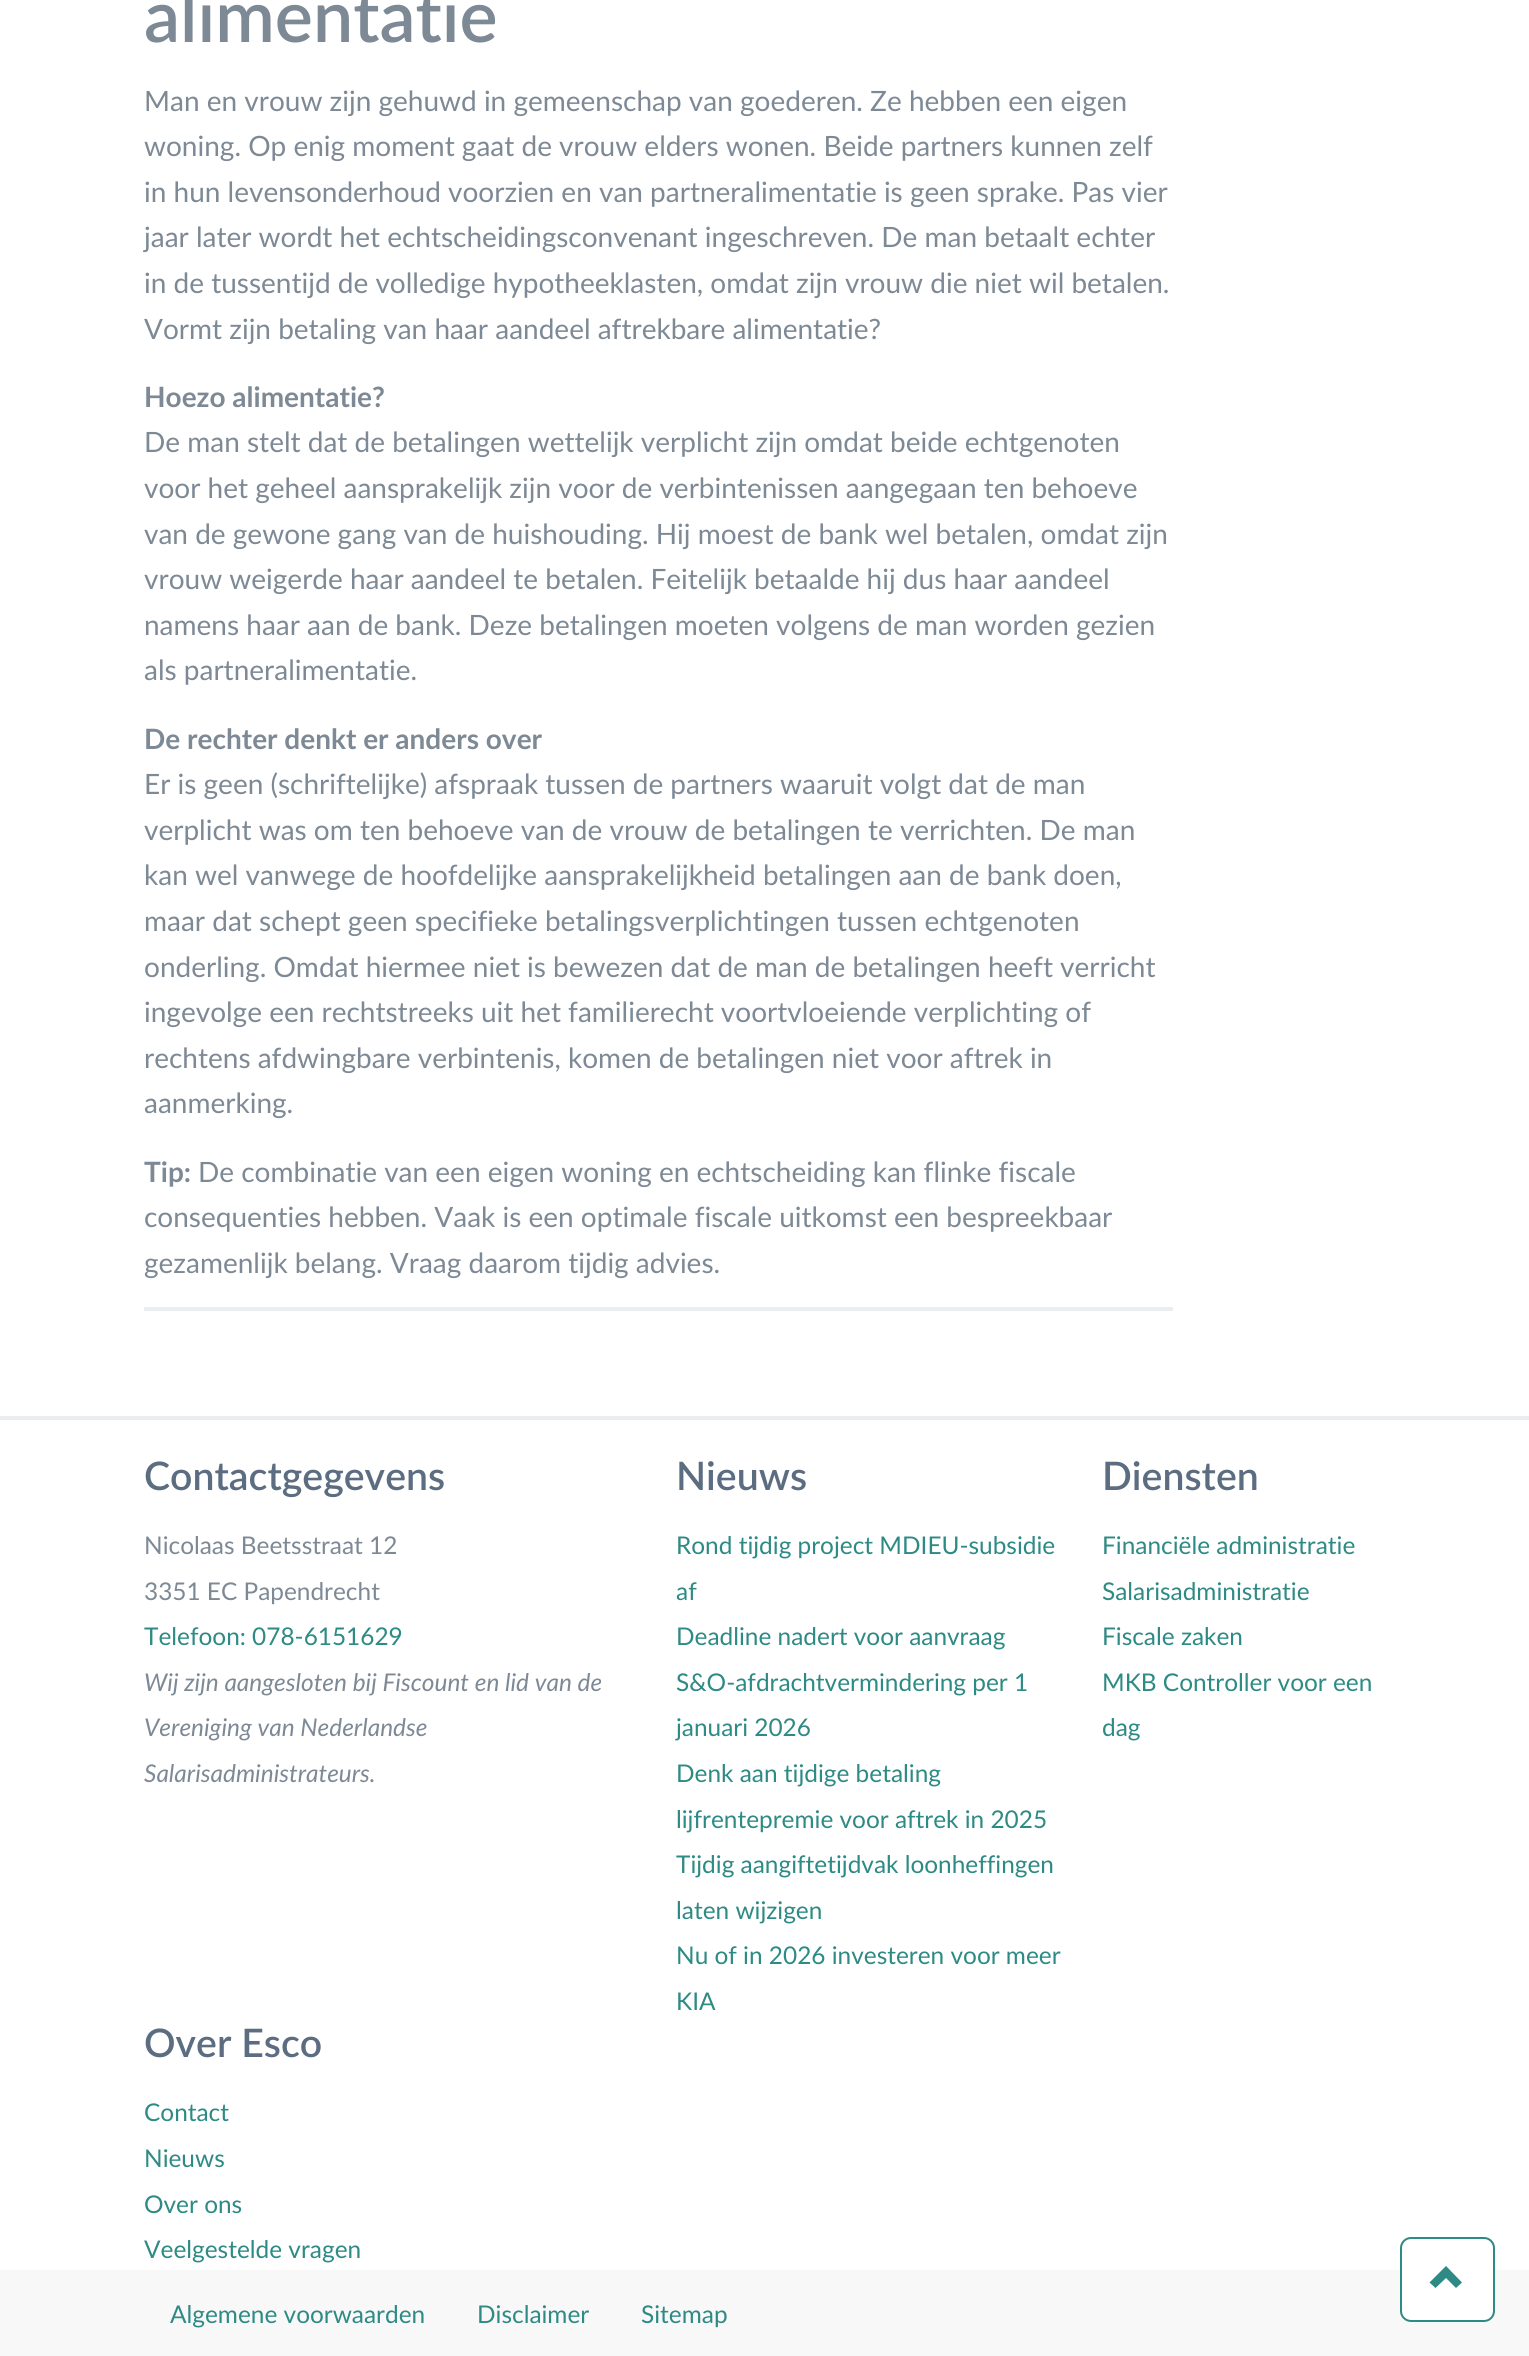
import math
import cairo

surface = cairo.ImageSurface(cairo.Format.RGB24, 1529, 2356)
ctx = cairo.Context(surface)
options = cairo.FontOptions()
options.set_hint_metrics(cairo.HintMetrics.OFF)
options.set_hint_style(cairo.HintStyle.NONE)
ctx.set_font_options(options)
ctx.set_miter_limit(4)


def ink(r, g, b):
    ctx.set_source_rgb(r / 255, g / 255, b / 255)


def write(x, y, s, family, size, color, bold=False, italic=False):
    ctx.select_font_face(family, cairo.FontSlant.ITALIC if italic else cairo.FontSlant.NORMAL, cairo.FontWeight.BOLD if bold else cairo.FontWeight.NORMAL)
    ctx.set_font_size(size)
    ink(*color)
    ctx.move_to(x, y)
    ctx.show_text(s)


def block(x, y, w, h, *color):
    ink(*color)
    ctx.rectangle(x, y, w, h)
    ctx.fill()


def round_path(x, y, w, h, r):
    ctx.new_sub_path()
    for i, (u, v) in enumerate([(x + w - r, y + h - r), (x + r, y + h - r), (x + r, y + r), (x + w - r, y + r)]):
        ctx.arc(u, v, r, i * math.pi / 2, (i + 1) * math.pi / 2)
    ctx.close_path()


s1 = dict(family="Lato SemiBold", size=71.75, color=(125, 137, 149))
s2 = dict(family="Lato", size=28, color=(125, 137, 149))
s3 = dict(family="Lato", size=28, color=(125, 137, 149), bold=True)
s4 = dict(family="Lato SemiBold", size=39.25, color=(92, 109, 129))
s5 = dict(family="Lato", size=24.4, color=(125, 137, 149))
s6 = dict(family="Lato", size=24.4, color=(45, 138, 132))
s7 = dict(family="Lato", size=24.4, color=(125, 137, 149), italic=True)

ink(255, 255, 255)
ctx.paint()
write(144, 42, "alimentatie", **s1)
write(144, 111, "Man en vrouw zijn gehuwd in gemeenschap van goederen. Ze hebben een eigen", **s2)
write(144, 156, "woning. Op enig moment gaat de vrouw elders wonen. Beide partners kunnen zelf", **s2)
write(144, 202, "in hun levensonderhoud voorzien en van partneralimentatie is geen sprake. Pas vier", **s2)
write(144, 247, "jaar later wordt het echtscheidingsconvenant ingeschreven. De man betaalt echter", **s2)
write(144, 293, "in de tussentijd de volledige hypotheeklasten, omdat zijn vrouw die niet wil betalen.", **s2)
write(144, 339, "Vormt zijn betaling van haar aandeel aftrekbare alimentatie?", **s2)
write(144, 407, "Hoezo alimentatie?", **s3)
write(144, 452, "De man stelt dat de betalingen wettelijk verplicht zijn omdat beide echtgenoten", **s2)
write(144, 498, "voor het geheel aansprakelijk zijn voor de verbintenissen aangegaan ten behoeve", **s2)
write(144, 544, "van de gewone gang van de huishouding. Hij moest de bank wel betalen, omdat zijn", **s2)
write(144, 589, "vrouw weigerde haar aandeel te betalen. Feitelijk betaalde hij dus haar aandeel", **s2)
write(144, 635, "namens haar aan de bank. Deze betalingen moeten volgens de man worden gezien", **s2)
write(144, 680, "als partneralimentatie.", **s2)
write(144, 749, "De rechter denkt er anders over", **s3)
write(144, 794, "Er is geen (schriftelijke) afspraak tussen de partners waaruit volgt dat de man", **s2)
write(144, 840, "verplicht was om ten behoeve van de vrouw de betalingen te verrichten. De man", **s2)
write(144, 885, "kan wel vanwege de hoofdelijke aansprakelijkheid betalingen aan de bank doen,", **s2)
write(144, 931, "maar dat schept geen specifieke betalingsverplichtingen tussen echtgenoten", **s2)
write(144, 977, "onderling. Omdat hiermee niet is bewezen dat de man de betalingen heeft verricht", **s2)
write(144, 1022, "ingevolge een rechtstreeks uit het familierecht voortvloeiende verplichting of", **s2)
write(144, 1068, "rechtens afdwingbare verbintenis, komen de betalingen niet voor aftrek in", **s2)
write(144, 1113, "aanmerking.", **s2)
write(144, 1182, "Tip:", **s3)
write(198, 1182, "De combinatie van een eigen woning en echtscheiding kan flinke fiscale", **s2)
write(144, 1227, "consequenties hebben. Vaak is een optimale fiscale uitkomst een bespreekbaar", **s2)
write(144, 1273, "gezamenlijk belang. Vraag daarom tijdig advies.", **s2)
block(144, 1307, 1029, 4, 234, 238, 241)
block(0, 1416, 1529, 4, 234, 238, 241)
write(144, 1490, "Contactgegevens", **s4)
write(144, 1554, "Nicolaas Beetsstraat 12", **s5)
write(144, 1600, "3351 EC Papendrecht", **s5)
write(144, 1645, "Telefoon: 078-6151629", **s6)
write(144, 1691, "Wij zijn aangesloten bij Fiscount en lid van de", **s7)
write(144, 1736, "Vereniging van Nederlandse", **s7)
write(144, 1782, "Salarisadministrateurs.", **s7)
write(676, 1490, "Nieuws", **s4)
write(676, 1554, "Rond tijdig project MDIEU-subsidie", **s6)
write(676, 1600, "af", **s6)
write(676, 1645, "Deadline nadert voor aanvraag", **s6)
write(676, 1691, "S&O-afdrachtvermindering per 1", **s6)
write(676, 1736, "januari 2026", **s6)
write(676, 1782, "Denk aan tijdige betaling", **s6)
write(676, 1828, "lijfrentepremie voor aftrek in 2025", **s6)
write(676, 1873, "Tijdig aangiftetijdvak loonheffingen", **s6)
write(676, 1919, "laten wijzigen", **s6)
write(676, 1964, "Nu of in 2026 investeren voor meer", **s6)
write(676, 2010, "KIA", **s6)
write(1102, 1490, "Diensten", **s4)
write(1102, 1554, "Financiële administratie", **s6)
write(1102, 1600, "Salarisadministratie", **s6)
write(1102, 1645, "Fiscale zaken", **s6)
write(1102, 1691, "MKB Controller voor een", **s6)
write(1102, 1736, "dag", **s6)
write(144, 2057, "Over Esco", **s4)
write(144, 2121, "Contact", **s6)
write(144, 2167, "Nieuws", **s6)
write(144, 2213, "Over ons", **s6)
write(144, 2258, "Veelgestelde vragen", **s6)
block(0, 2270, 1529, 86, 248, 248, 248)
ink(255, 255, 255)
round_path(1401, 2238, 93, 83, 10)
ctx.fill_preserve()
ink(45, 138, 132)
ctx.stroke()
ctx.new_path()
ctx.move_to(1462, 2282.5)
ctx.line_to(1456, 2288)
ctx.line_to(1446, 2278)
ctx.line_to(1435.5, 2288)
ctx.line_to(1429.5, 2282.5)
ctx.line_to(1446, 2266)
ctx.close_path()
ctx.fill()
write(170, 2323, "Algemene voorwaarden", **s6)
write(477, 2323, "Disclaimer", **s6)
write(641, 2323, "Sitemap", **s6)
surface.write_to_png("screenshot.png")
